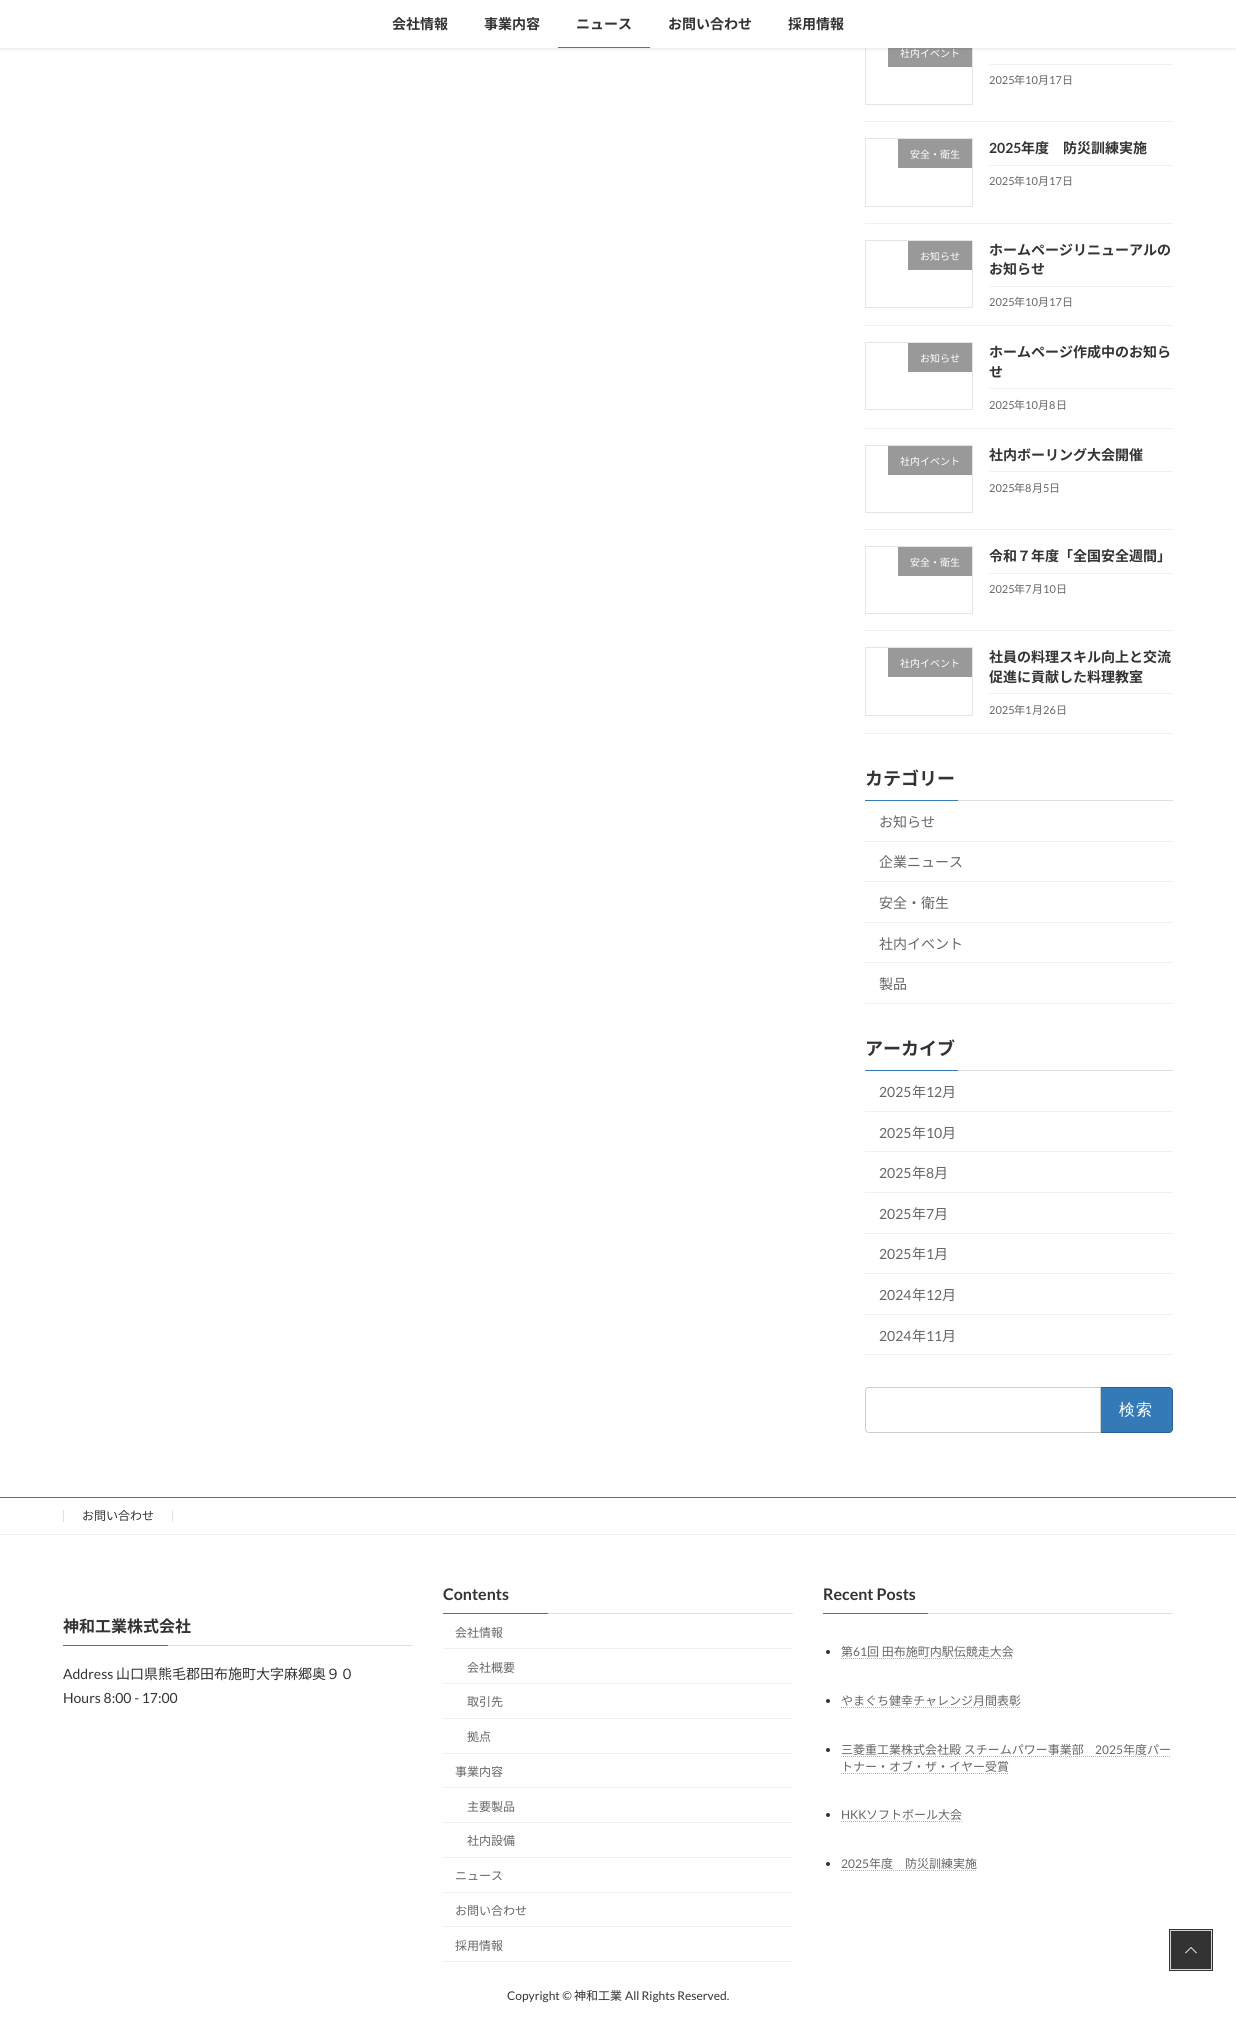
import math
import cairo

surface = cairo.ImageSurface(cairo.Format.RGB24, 1236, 2030)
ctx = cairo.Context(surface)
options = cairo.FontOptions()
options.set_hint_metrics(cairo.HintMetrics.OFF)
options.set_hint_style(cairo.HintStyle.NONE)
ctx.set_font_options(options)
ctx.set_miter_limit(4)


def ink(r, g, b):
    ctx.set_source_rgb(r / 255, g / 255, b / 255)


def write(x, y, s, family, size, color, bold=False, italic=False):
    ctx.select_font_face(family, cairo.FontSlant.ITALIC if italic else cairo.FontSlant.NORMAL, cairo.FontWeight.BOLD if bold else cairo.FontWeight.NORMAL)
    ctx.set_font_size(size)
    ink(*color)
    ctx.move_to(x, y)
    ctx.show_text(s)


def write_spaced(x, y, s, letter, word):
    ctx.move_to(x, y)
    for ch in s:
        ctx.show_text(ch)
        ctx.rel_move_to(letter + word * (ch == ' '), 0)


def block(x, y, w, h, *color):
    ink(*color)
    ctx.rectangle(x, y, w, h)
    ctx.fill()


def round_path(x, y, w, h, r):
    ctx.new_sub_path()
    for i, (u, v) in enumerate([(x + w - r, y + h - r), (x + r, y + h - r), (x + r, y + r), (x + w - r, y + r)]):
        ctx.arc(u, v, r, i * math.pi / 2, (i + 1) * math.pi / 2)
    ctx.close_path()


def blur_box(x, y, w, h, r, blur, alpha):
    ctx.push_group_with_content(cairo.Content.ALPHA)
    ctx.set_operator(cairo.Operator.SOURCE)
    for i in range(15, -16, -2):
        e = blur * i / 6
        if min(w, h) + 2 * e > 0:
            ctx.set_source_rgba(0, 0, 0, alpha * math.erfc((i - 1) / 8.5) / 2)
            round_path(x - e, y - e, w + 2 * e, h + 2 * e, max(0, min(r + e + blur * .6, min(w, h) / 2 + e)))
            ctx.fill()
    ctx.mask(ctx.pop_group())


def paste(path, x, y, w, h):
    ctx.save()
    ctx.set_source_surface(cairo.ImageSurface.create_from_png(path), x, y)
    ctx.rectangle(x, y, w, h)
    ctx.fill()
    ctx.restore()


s1 = dict(family="Noto Sans JP", size=14, color=(51, 51, 51), bold=True)
s2 = dict(family="Noto Sans JP", size=10, color=(255, 255, 255))
s3 = dict(family="Lato", size=11, color=(102, 102, 102))
s4 = dict(family="Noto Sans JP", size=11, color=(102, 102, 102))
s5 = dict(family="Lato", size=14, color=(51, 51, 51), bold=True)
s6 = dict(family="Noto Sans JP", size=18, color=(51, 51, 51), bold=True)
s7 = dict(family="Noto Sans JP", size=14, color=(102, 102, 102))
s8 = dict(family="Lato", size=14, color=(102, 102, 102))
s9 = dict(family="Noto Sans JP", size=12, color=(51, 51, 51))
s10 = dict(family="Noto Sans JP", size=16, color=(51, 51, 51), bold=True)
s11 = dict(family="Lato", size=14, color=(51, 51, 51))
s12 = dict(family="Noto Sans JP", size=14, color=(51, 51, 51))
s13 = dict(family="Lato", size=16, color=(51, 51, 51), bold=True)
s14 = dict(family="Noto Sans JP", size=12, color=(102, 102, 102))
s15 = dict(family="Lato", size=12, color=(102, 102, 102))
s16 = dict(family="Lato", size=12, color=(51, 51, 51))

ink(255, 255, 255)
ctx.paint()
ctx.rectangle(865.5, 37.5, 107, 67)
ink(229, 229, 229)
ctx.set_line_width(1)
ctx.stroke()
block(888, 48, 84, 19, 153, 153, 153)
ink(0, 0, 0)
blur_box(0, 1, 1236, 48, 0, 1.5, 0.1)
block(0, 0, 1236, 48, 255, 255, 255)
write(392, 29, "会社情報", **s1)
write(484, 29, "事業内容", **s1)
write(576, 29, "ニュース", **s1)
block(558, 47, 92, 1, 51, 122, 183)
write(668, 29, "お問い合わせ", **s1)
write(788, 29, "採用情報", **s1)
block(865, 121, 308, 1, 240, 240, 240)
write(900, 57, "社内イベント", **s2)
block(989, 64, 184, 1, 240, 240, 240)
write(989, 84, "2025", **s3)
write(1014, 84, "年", **s4)
write(1025, 84, "10", **s3)
write(1038, 84, "月", **s4)
write(1049, 84, "17", **s3)
write(1062, 84, "日", **s4)
block(865, 223, 308, 1, 240, 240, 240)
ctx.rectangle(865.5, 138.5, 107, 68)
ink(229, 229, 229)
ctx.stroke()
block(898, 139, 74, 29, 153, 153, 153)
write(910, 158, "安全・衛生", **s2)
block(989, 165, 184, 1, 240, 240, 240)
write(989, 153, "2025", **s5)
write(1021, 153, "年度　防災訓練実施", **s1)
write(989, 185, "2025", **s3)
write(1014, 185, "年", **s4)
write(1025, 185, "10", **s3)
write(1038, 185, "月", **s4)
write(1049, 185, "17", **s3)
write(1062, 185, "日", **s4)
block(865, 325, 308, 1, 240, 240, 240)
ctx.rectangle(865.5, 240.5, 107, 67)
ink(229, 229, 229)
ctx.stroke()
block(908, 241, 64, 29, 153, 153, 153)
write(920, 260, "お知らせ", **s2)
block(989, 286, 184, 1, 240, 240, 240)
write(989, 255, "ホームページリニューアルの", **s1)
write(989, 274, "お知らせ", **s1)
write(989, 306, "2025", **s3)
write(1014, 306, "年", **s4)
write(1025, 306, "10", **s3)
write(1038, 306, "月", **s4)
write(1049, 306, "17", **s3)
write(1062, 306, "日", **s4)
block(865, 428, 308, 1, 240, 240, 240)
ctx.rectangle(865.5, 342.5, 107, 67)
ink(229, 229, 229)
ctx.stroke()
block(908, 343, 64, 29, 153, 153, 153)
write(920, 362, "お知らせ", **s2)
block(989, 388, 184, 1, 240, 240, 240)
write(989, 357, "ホームページ作成中のお知ら", **s1)
write(989, 377, "せ", **s1)
write(989, 409, "2025", **s3)
write(1014, 409, "年", **s4)
write(1025, 409, "10", **s3)
write(1038, 409, "月", **s4)
write(1049, 409, "8", **s3)
write(1056, 409, "日", **s4)
block(865, 529, 308, 1, 240, 240, 240)
ctx.rectangle(865.5, 445.5, 107, 67)
ink(229, 229, 229)
ctx.stroke()
block(888, 446, 84, 29, 153, 153, 153)
write(900, 465, "社内イベント", **s2)
block(989, 471, 184, 1, 240, 240, 240)
write(989, 460, "社内ボーリング大会開催", **s1)
write(989, 492, "2025", **s3)
write(1014, 492, "年", **s4)
write(1025, 492, "8", **s3)
write(1032, 492, "月", **s4)
write(1043, 492, "5", **s3)
write(1049, 492, "日", **s4)
block(865, 630, 308, 1, 240, 240, 240)
ctx.rectangle(865.5, 546.5, 107, 67)
ink(229, 229, 229)
ctx.stroke()
block(898, 547, 74, 29, 153, 153, 153)
write(910, 566, "安全・衛生", **s2)
block(989, 573, 184, 1, 240, 240, 240)
write(989, 561, "令和７年度「全国安全週間」", **s1)
write(989, 593, "2025", **s3)
write(1014, 593, "年", **s4)
write(1025, 593, "7", **s3)
write(1032, 593, "月", **s4)
write(1043, 593, "10", **s3)
write(1056, 593, "日", **s4)
block(865, 733, 308, 1, 240, 240, 240)
ctx.rectangle(865.5, 647.5, 107, 68)
ink(229, 229, 229)
ctx.stroke()
block(888, 648, 84, 29, 153, 153, 153)
write(900, 667, "社内イベント", **s2)
block(989, 693, 184, 1, 240, 240, 240)
write(989, 662, "社員の料理スキル向上と交流", **s1)
write(989, 682, "促進に貢献した料理教室", **s1)
write(989, 714, "2025", **s3)
write(1014, 714, "年", **s4)
write(1025, 714, "1", **s3)
write(1032, 714, "月", **s4)
write(1043, 714, "26", **s3)
write(1056, 714, "日", **s4)
block(958, 800, 215, 1, 224, 224, 224)
write(865, 785, "カテゴリー", **s6)
block(865, 800, 93, 1, 51, 122, 183)
block(865, 841, 308, 1, 240, 240, 240)
write(879, 827, "お知らせ", **s7)
block(865, 881, 308, 1, 240, 240, 240)
write(879, 867, "企業ニュース", **s7)
block(865, 922, 308, 1, 240, 240, 240)
write(879, 908, "安全・衛生", **s7)
block(865, 962, 308, 1, 240, 240, 240)
write(879, 949, "社内イベント", **s7)
block(865, 1003, 308, 1, 240, 240, 240)
write(879, 989, "製品", **s7)
block(958, 1070, 215, 1, 224, 224, 224)
write(865, 1055, "アーカイブ", **s6)
block(865, 1070, 93, 1, 51, 122, 183)
block(865, 1111, 308, 1, 240, 240, 240)
write(879, 1097, "2025", **s8)
write(912, 1097, "年", **s7)
write(926, 1097, "12", **s8)
write(942, 1097, "月", **s7)
block(865, 1151, 308, 1, 240, 240, 240)
write(879, 1138, "2025", **s8)
write(912, 1138, "年", **s7)
write(926, 1138, "10", **s8)
write(942, 1138, "月", **s7)
block(865, 1192, 308, 1, 240, 240, 240)
write(879, 1178, "2025", **s8)
write(912, 1178, "年", **s7)
write(926, 1178, "8", **s8)
write(934, 1178, "月", **s7)
block(865, 1233, 308, 1, 240, 240, 240)
write(879, 1219, "2025", **s8)
write(912, 1219, "年", **s7)
write(926, 1219, "7", **s8)
write(934, 1219, "月", **s7)
block(865, 1273, 308, 1, 240, 240, 240)
write(879, 1259, "2025", **s8)
write(912, 1259, "年", **s7)
write(926, 1259, "1", **s8)
write(934, 1259, "月", **s7)
block(865, 1314, 308, 1, 240, 240, 240)
write(879, 1300, "2024", **s8)
write(912, 1300, "年", **s7)
write(926, 1300, "12", **s8)
write(942, 1300, "月", **s7)
block(865, 1354, 308, 1, 240, 240, 240)
write(879, 1341, "2024", **s8)
write(912, 1341, "年", **s7)
write(926, 1341, "11", **s8)
write(942, 1341, "月", **s7)
ctx.new_path()
ctx.move_to(869, 1387.5)
ctx.line_to(1100.5, 1387.5)
ctx.line_to(1100.5, 1432.5)
ctx.line_to(869, 1432.5)
ctx.curve_to(867, 1432.5, 865.5, 1431, 865.5, 1429)
ctx.line_to(865.5, 1391)
ctx.curve_to(865.5, 1389, 867, 1387.5, 869, 1387.5)
ctx.close_path()
ink(204, 204, 204)
ctx.stroke()
ink(51, 122, 183)
ctx.new_path()
ctx.move_to(1101, 1387)
ctx.line_to(1169, 1387)
ctx.curve_to(1171, 1387, 1173, 1389, 1173, 1391)
ctx.line_to(1173, 1429)
ctx.curve_to(1173, 1431, 1171, 1433, 1169, 1433)
ctx.line_to(1101, 1433)
ctx.close_path()
ctx.fill()
ctx.set_source_rgba(0, 0, 0, 0.2)
ctx.set_fill_rule(cairo.FillRule.EVEN_ODD)
ctx.new_path()
ctx.move_to(1101, 1387)
ctx.line_to(1169, 1387)
ctx.curve_to(1171, 1387, 1173, 1389, 1173, 1391)
ctx.line_to(1173, 1429)
ctx.curve_to(1173, 1431, 1171, 1433, 1169, 1433)
ctx.line_to(1101, 1433)
ctx.close_path()
ctx.move_to(1101, 1388)
ctx.line_to(1169, 1388)
ctx.curve_to(1171, 1388, 1172, 1389, 1172, 1391)
ctx.line_to(1172, 1429)
ctx.curve_to(1172, 1431, 1171, 1432, 1169, 1432)
ctx.line_to(1101, 1432)
ctx.close_path()
ctx.fill()
ctx.select_font_face("WenQuanYi Zen Hei Medium")
ctx.set_font_size(16)
ink(255, 255, 255)
write_spaced(1119, 1415, "検索", 1, 0)
block(0, 1497, 1236, 1, 51, 122, 183)
block(0, 1534, 1236, 1, 240, 240, 240)
block(172, 1510, 1, 12, 224, 224, 224)
block(63, 1510, 1, 12, 224, 224, 224)
write(82, 1520, "お問い合わせ", **s9)
block(168, 1645, 245, 1, 224, 224, 224)
write(63, 1632, "神和工業株式会社", **s10)
block(63, 1645, 105, 1, 51, 122, 183)
write(63, 1679, "Address", **s11)
write(116, 1679, "山口県熊毛郡田布施町大字麻郷奥９０", **s12)
write(63, 1703, "Hours 8:00 - 17:00", **s11)
block(548, 1613, 245, 1, 224, 224, 224)
write(443, 1600, "Contents", **s13)
block(443, 1613, 105, 1, 51, 122, 183)
block(443, 1648, 350, 1, 240, 240, 240)
write(455, 1637, "会社情報", **s14)
block(443, 1683, 350, 1, 240, 240, 240)
write(467, 1672, "会社概要", **s14)
block(443, 1718, 350, 1, 240, 240, 240)
write(467, 1706, "取引先", **s14)
block(443, 1753, 350, 1, 240, 240, 240)
write(467, 1741, "拠点", **s14)
block(443, 1787, 350, 1, 240, 240, 240)
write(455, 1776, "事業内容", **s14)
block(443, 1822, 350, 1, 240, 240, 240)
write(467, 1811, "主要製品", **s14)
block(443, 1857, 350, 1, 240, 240, 240)
write(467, 1845, "社内設備", **s14)
block(443, 1892, 350, 1, 240, 240, 240)
write(455, 1880, "ニュース", **s14)
block(443, 1926, 350, 1, 240, 240, 240)
write(455, 1915, "お問い合わせ", **s14)
block(443, 1961, 350, 1, 240, 240, 240)
write(455, 1950, "採用情報", **s14)
block(928, 1613, 245, 1, 224, 224, 224)
write(823, 1600, "Recent Posts", **s13)
block(823, 1613, 105, 1, 51, 122, 183)
ink(51, 51, 51)
ctx.new_path()
ctx.arc(828, 1652, 2, 0, 2 * math.pi)
ctx.fill()
write(841, 1656, "第", **s14)
write(853, 1656, "61", **s15)
ctx.new_path()
ctx.move_to(841, 1658.5)
ctx.line_to(1013, 1658.5)
ink(179, 179, 179)
ctx.set_dash([1, 1])
ctx.stroke()
write(867, 1656, "回 田布施町内駅伝競走大会", **s14)
ink(51, 51, 51)
ctx.new_path()
ctx.arc(828, 1701, 2, 0, 2 * math.pi)
ctx.fill()
write(841, 1705, "やまぐち健幸チャレンジ月間表彰", **s14)
ctx.new_path()
ctx.move_to(841, 1707.5)
ctx.line_to(1021, 1707.5)
ink(179, 179, 179)
ctx.stroke()
ink(51, 51, 51)
ctx.arc(828, 1750, 2, 0, 2 * math.pi)
ctx.fill()
write(841, 1754, "三菱重工業株式会社殿 スチームパワー事業部", **s14)
write(1095, 1754, "2025", **s15)
ctx.new_path()
ctx.move_to(841, 1756.5)
ctx.line_to(1171, 1756.5)
ink(179, 179, 179)
ctx.stroke()
write(1123, 1754, "年度パー", **s14)
write(841, 1771, "トナー・オブ・ザ・イヤー受賞", **s14)
ctx.new_path()
ctx.move_to(841, 1773.5)
ctx.line_to(1009, 1773.5)
ink(179, 179, 179)
ctx.stroke()
ink(51, 51, 51)
ctx.arc(828, 1815, 2, 0, 2 * math.pi)
ctx.fill()
write(841, 1819, "HKK", **s15)
ctx.new_path()
ctx.move_to(841, 1821.5)
ctx.line_to(962.5, 1821.5)
ink(179, 179, 179)
ctx.stroke()
write(866, 1819, "ソフトボール大会", **s14)
ink(51, 51, 51)
ctx.new_path()
ctx.arc(828, 1864, 2, 0, 2 * math.pi)
ctx.fill()
write(841, 1868, "2025", **s15)
ctx.new_path()
ctx.move_to(841, 1870.5)
ctx.line_to(977, 1870.5)
ink(179, 179, 179)
ctx.stroke()
write(869, 1868, "年度　防災訓練実施", **s14)
write(507, 2000, "Copyright ©", **s16)
write(574, 2000, "神和工業", **s9)
write(625, 2000, "All Rights Reserved.", **s16)
ctx.rectangle(1170, 1930, 42, 40)
ctx.set_line_width(2)
ctx.set_dash([])
ctx.stroke()
ctx.rectangle(1170.5, 1930.5, 41, 39)
ink(214, 214, 214)
ctx.set_line_width(1)
ctx.stroke()
block(1171, 1931, 40, 38, 51, 51, 51)
paste("pic1.png", 1185, 1947, 12, 7)
surface.write_to_png("screenshot.png")
